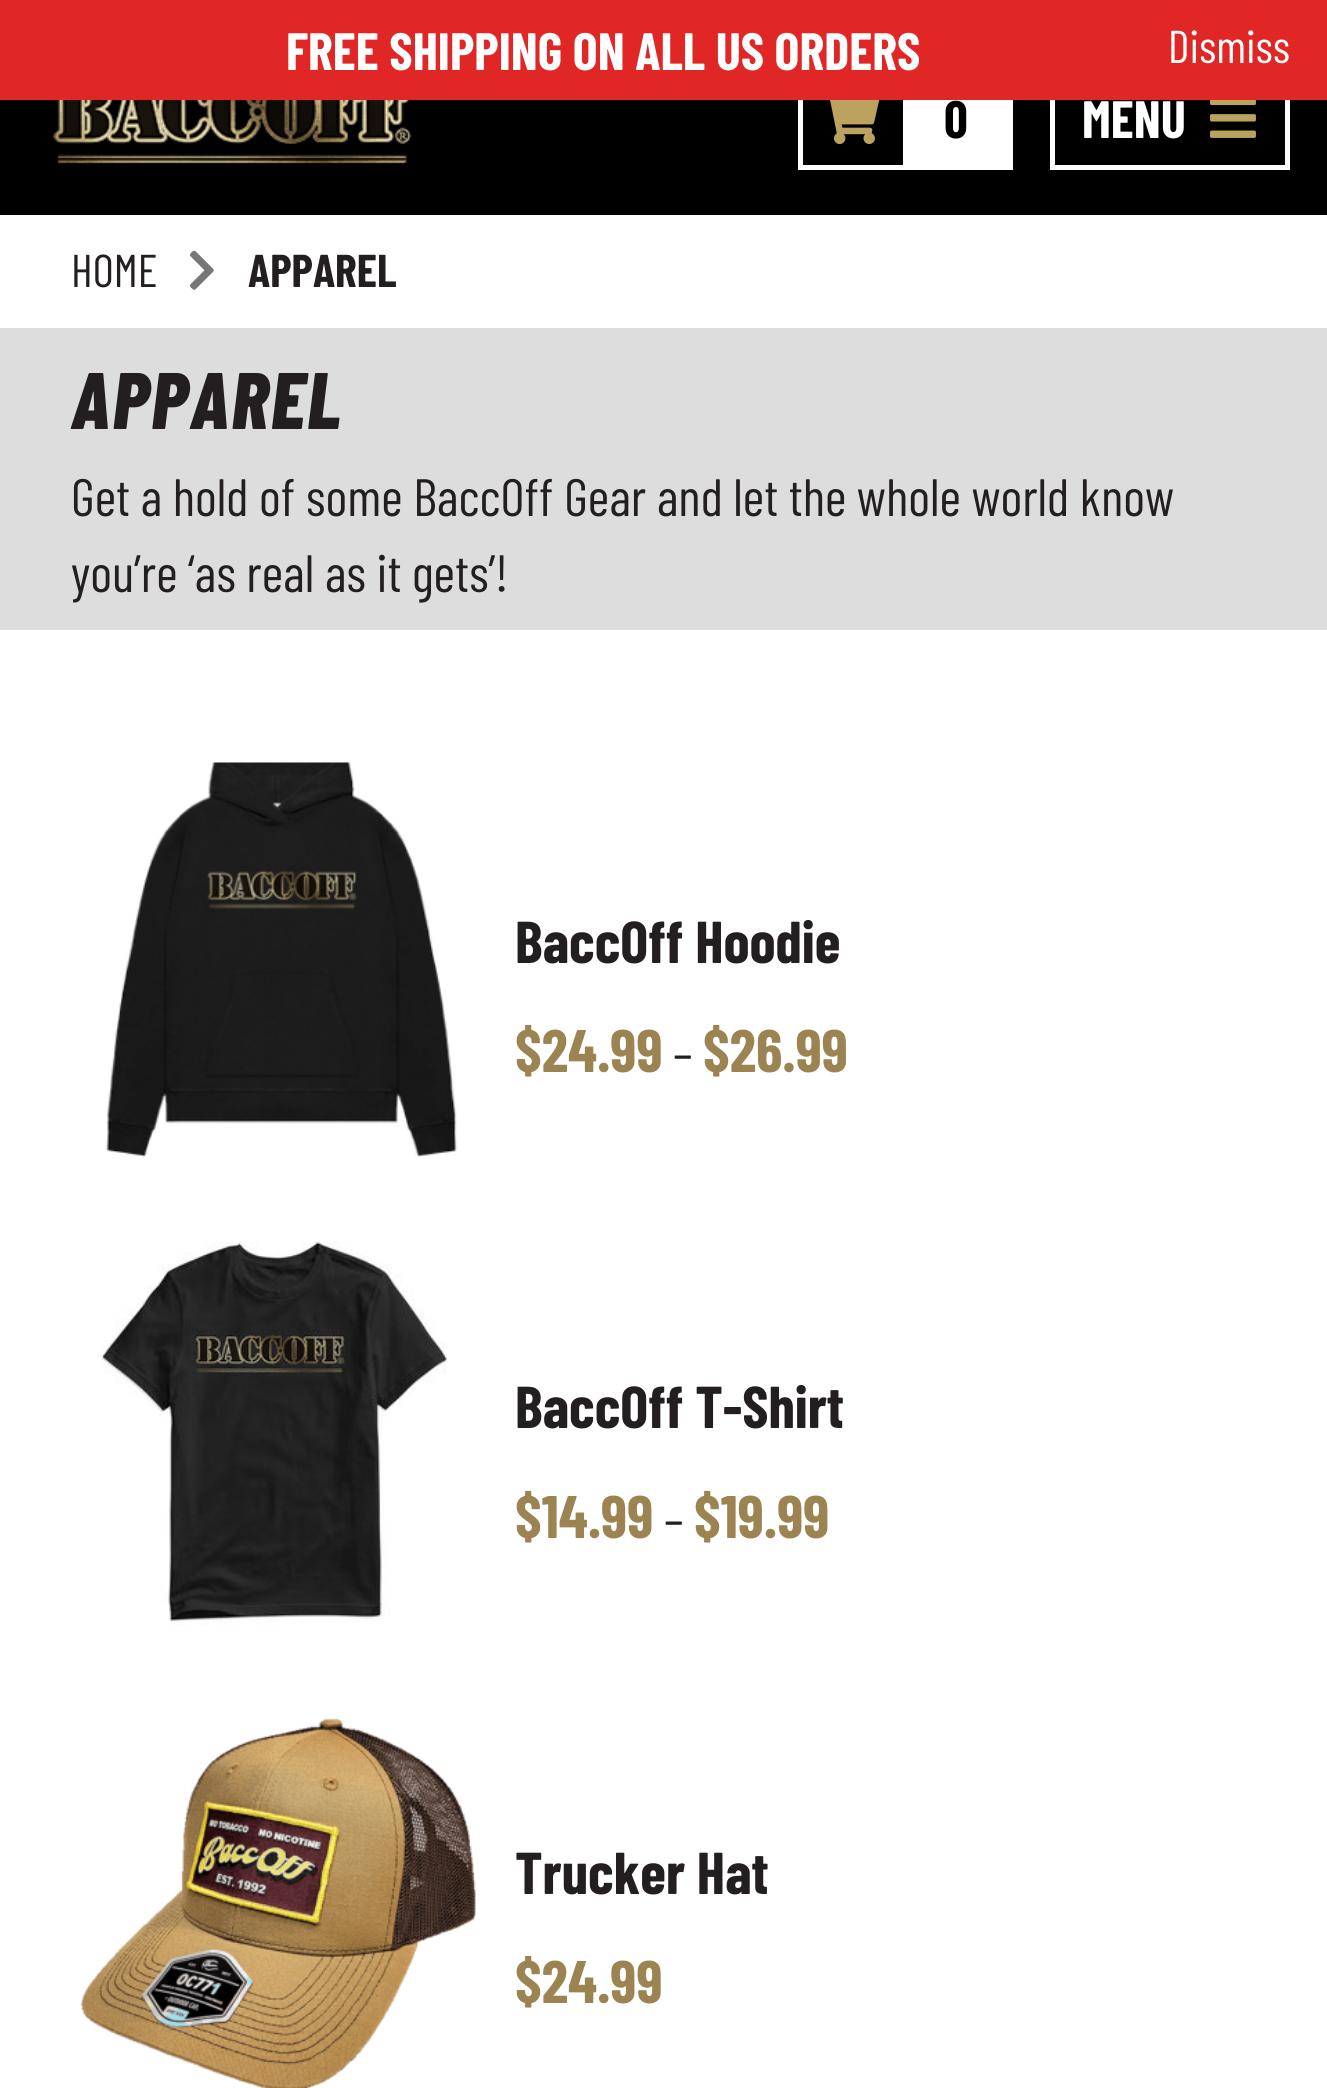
import math
import cairo

surface = cairo.ImageSurface(cairo.Format.RGB24, 1327, 2088)
ctx = cairo.Context(surface)
options = cairo.FontOptions()
options.set_hint_metrics(cairo.HintMetrics.OFF)
options.set_hint_style(cairo.HintStyle.NONE)
ctx.set_font_options(options)
ctx.set_miter_limit(4)


def ink(r, g, b):
    ctx.set_source_rgb(r / 255, g / 255, b / 255)


def write(x, y, s, family, size, color, bold=False, italic=False):
    ctx.select_font_face(family, cairo.FontSlant.ITALIC if italic else cairo.FontSlant.NORMAL, cairo.FontWeight.BOLD if bold else cairo.FontWeight.NORMAL)
    ctx.set_font_size(size)
    ink(*color)
    ctx.move_to(x, y)
    ctx.show_text(s)


def write_spaced(x, y, s, letter, word):
    ctx.move_to(x, y)
    for ch in s:
        ctx.show_text(ch)
        ctx.rel_move_to(letter + word * (ch == ' '), 0)


def block(x, y, w, h, *color):
    ink(*color)
    ctx.rectangle(x, y, w, h)
    ctx.fill()


def paste(path, x, y, w, h):
    ctx.save()
    ctx.set_source_surface(cairo.ImageSurface.create_from_png(path), x, y)
    ctx.rectangle(x, y, w, h)
    ctx.fill()
    ctx.restore()


s1 = dict(family="Barlow Condensed", size=52.5, color=(255, 255, 255), bold=True)
s2 = dict(family="Barlow Condensed", size=46, color=(255, 255, 255))
s3 = dict(family="Barlow Condensed", size=52.5, color=(0, 0, 0), bold=True)
s4 = dict(family="Barlow Condensed", size=46, color=(35, 31, 32))
s5 = dict(family="Barlow Condensed", size=46, color=(35, 31, 32), bold=True)
s6 = dict(family="Barlow Condensed", size=52.5, color=(35, 31, 32))
s7 = dict(family="Barlow Condensed", size=59, color=(35, 31, 32), bold=True)
s8 = dict(family="Barlow Condensed", size=60, color=(156, 132, 82), bold=True)

ink(255, 255, 255)
ctx.paint()
block(0, 100, 1327, 115, 0, 0, 0)
ctx.rectangle(800.5, 67.5, 210, 100)
ink(255, 255, 255)
ctx.set_line_width(5)
ctx.stroke()
ctx.rectangle(1052.5, 67.5, 235, 100)
ctx.stroke()
block(0, 0, 1327, 100, 225, 39, 38)
write(286, 70, "FREE SHIPPING ON ALL US ORDERS", **s1)
write(1168, 63, "Dismiss", **s2)
paste("pic1.png", 53, 100, 359, 64)
paste("pic2.png", 830, 100, 49, 45)
block(903, 100, 105, 65, 255, 255, 255)
write(944, 138, "0", **s3)
write(1082, 138, "MENU", **s1)
paste("pic3.png", 1210, 100, 46, 38)
block(0, 328, 1327, 302, 221, 221, 221)
write(71, 287, "HOME", **s4)
paste("pic4.png", 190, 250, 24, 40)
write(248, 287, "APPAREL", **s5)
ctx.select_font_face("Barlow Condensed ExtraBold", cairo.FontSlant.ITALIC)
ctx.set_font_size(80)
write_spaced(71, 429, "APPAREL", 2, 0)
write(71, 516, "Get a hold of some BaccOff Gear and let the whole world know", **s6)
write(71, 592, "you’re ‘as real as it gets’!", **s6)
paste("pic5.png", 105, 762, 353, 395)
write(515, 963, "BaccOff Hoodie", **s7)
write(515, 1072, "$24.99", **s8)
write(673, 1072, "–", **s6)
write(703, 1072, "$26.99", **s8)
paste("pic6.png", 100, 1241, 347, 385)
write(515, 1428, "BaccOff T-Shirt", **s7)
write(515, 1538, "$14.99", **s8)
write(664, 1538, "–", **s6)
write(694, 1538, "$19.99", **s8)
paste("pic7.png", 80, 1718, 396, 370)
write(515, 1894, "Trucker Hat", **s7)
write(515, 2003, "$24.99", **s8)
surface.write_to_png("screenshot.png")
